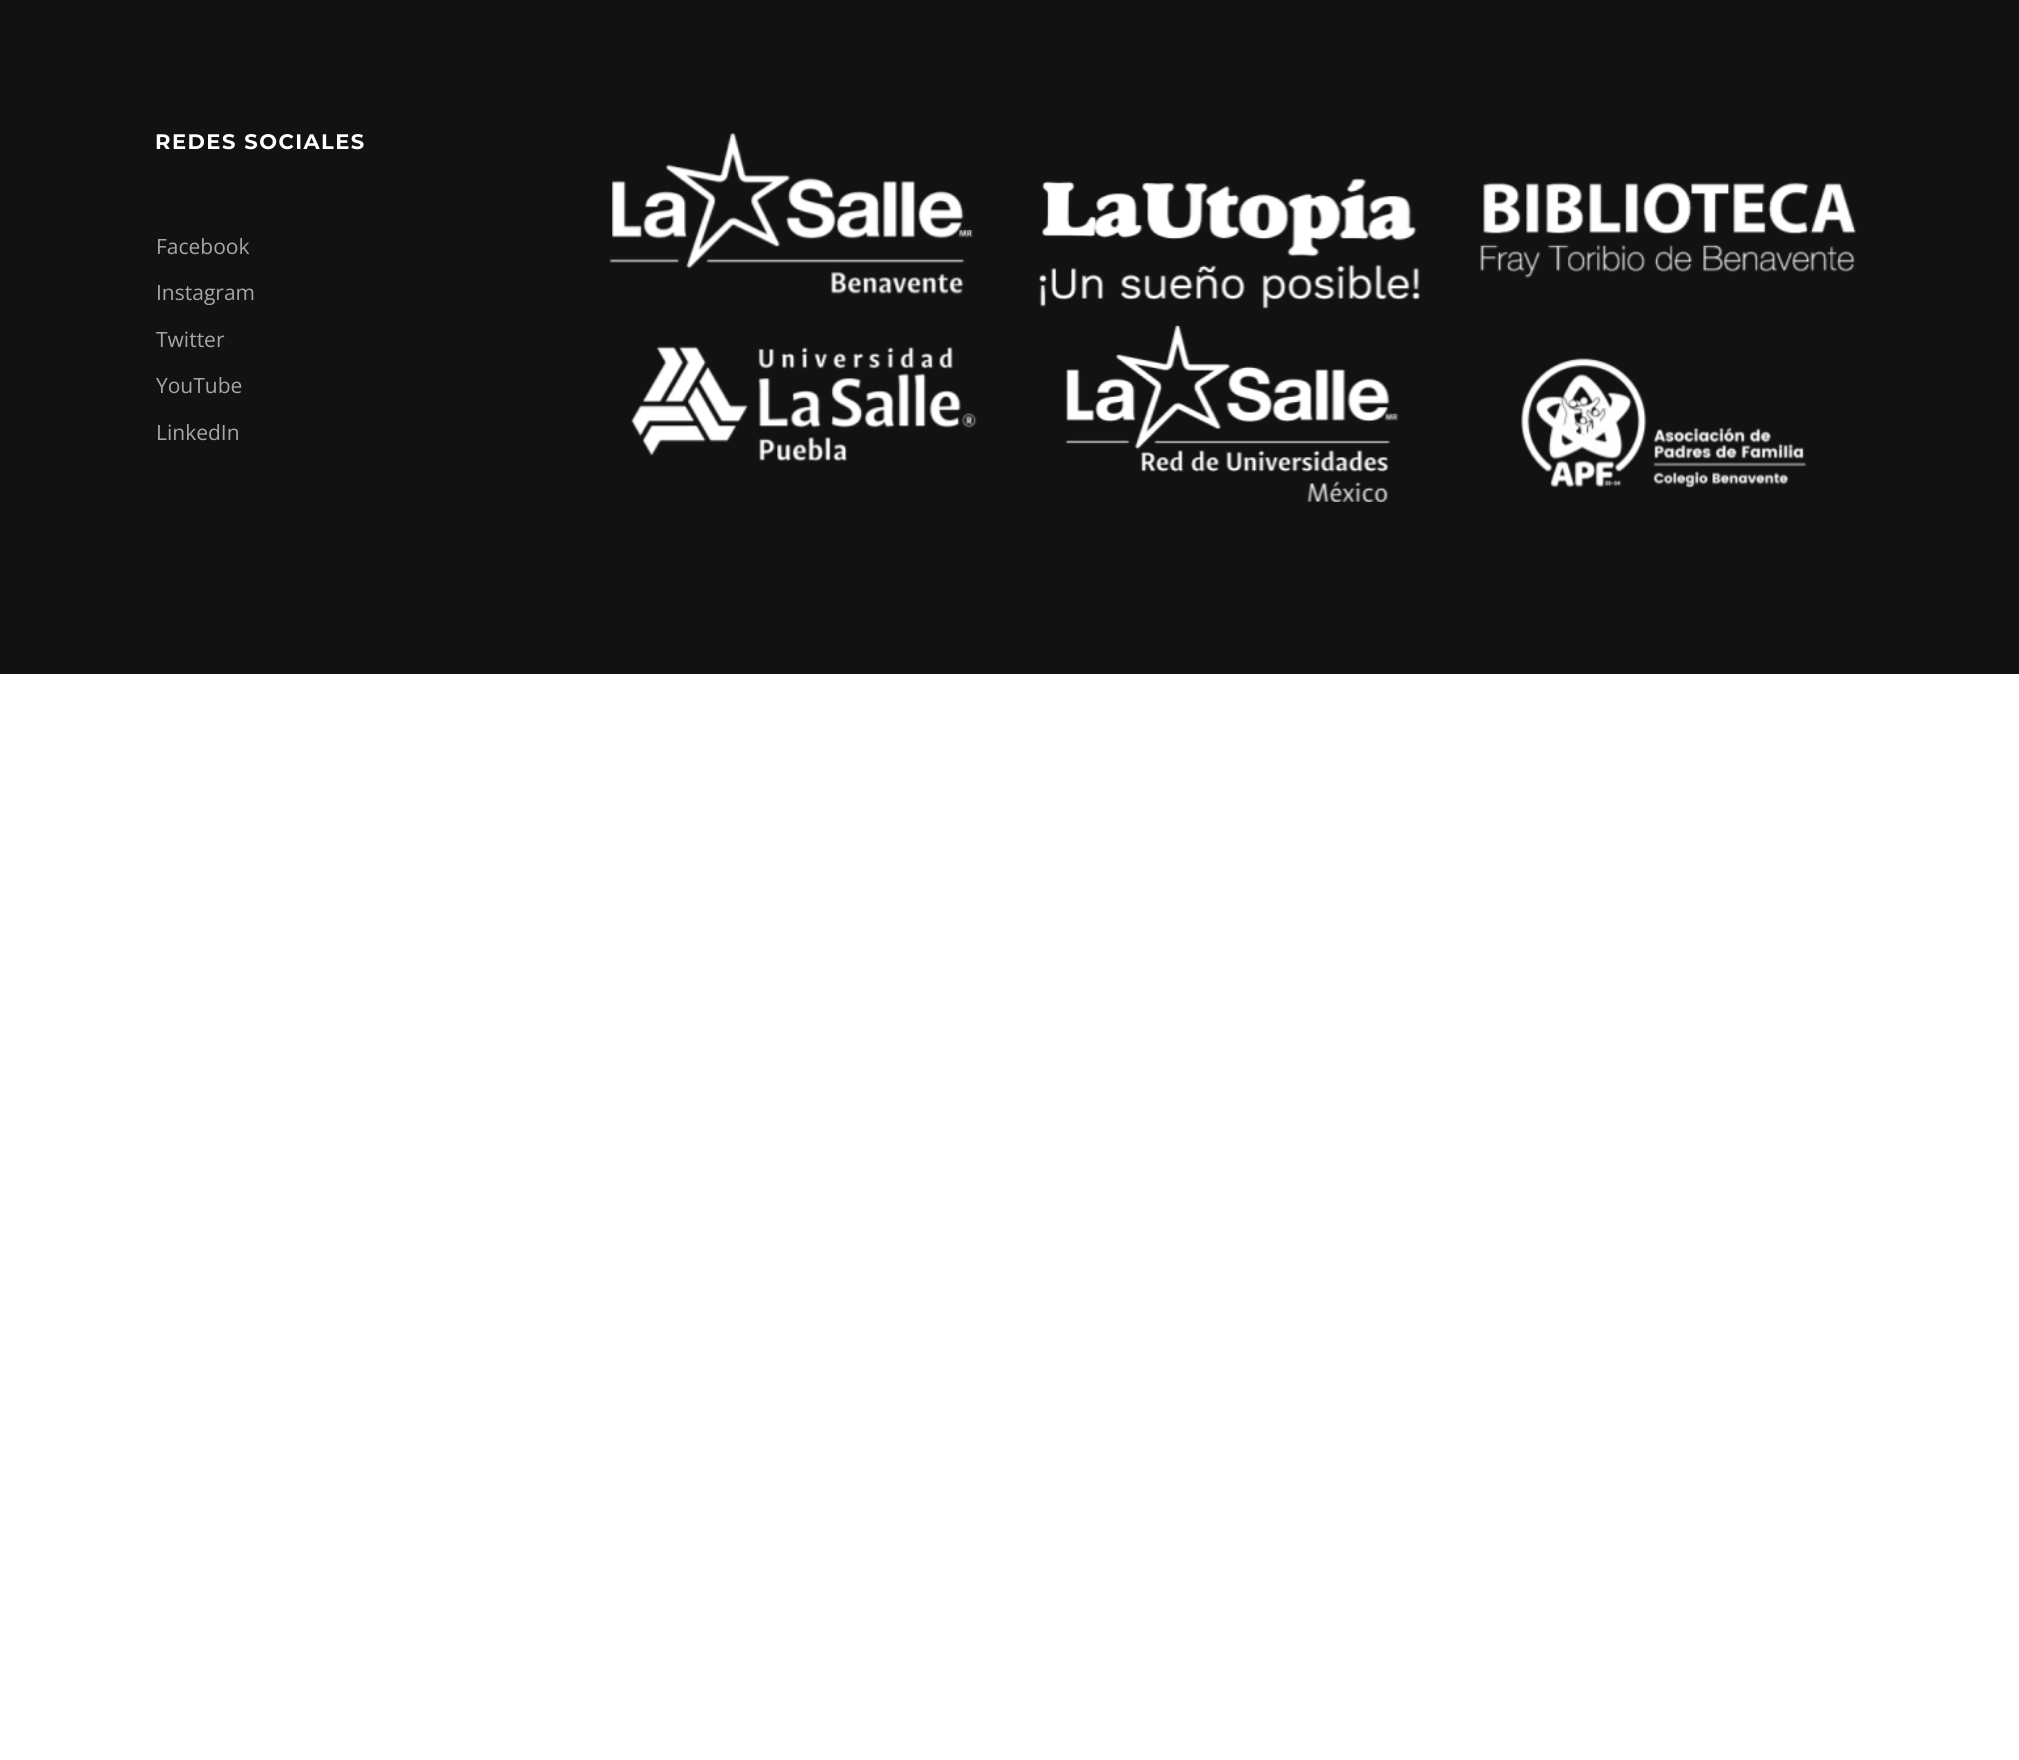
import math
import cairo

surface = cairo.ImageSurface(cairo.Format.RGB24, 2019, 1760)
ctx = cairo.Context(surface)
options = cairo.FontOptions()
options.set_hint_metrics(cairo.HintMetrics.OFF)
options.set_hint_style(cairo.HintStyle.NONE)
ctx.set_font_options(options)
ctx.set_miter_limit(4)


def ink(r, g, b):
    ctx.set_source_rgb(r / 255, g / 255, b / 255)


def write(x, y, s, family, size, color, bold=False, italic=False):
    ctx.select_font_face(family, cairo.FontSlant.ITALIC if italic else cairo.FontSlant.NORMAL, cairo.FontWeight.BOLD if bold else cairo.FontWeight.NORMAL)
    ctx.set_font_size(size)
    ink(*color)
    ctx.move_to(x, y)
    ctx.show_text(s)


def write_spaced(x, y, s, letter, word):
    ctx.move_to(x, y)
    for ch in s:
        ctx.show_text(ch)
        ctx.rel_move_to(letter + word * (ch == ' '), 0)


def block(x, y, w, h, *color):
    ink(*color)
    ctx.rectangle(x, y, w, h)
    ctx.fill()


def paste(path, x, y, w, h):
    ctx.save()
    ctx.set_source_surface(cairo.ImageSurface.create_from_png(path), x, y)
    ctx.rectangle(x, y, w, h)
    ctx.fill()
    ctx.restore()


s1 = dict(family="Open Sans", size=21, color=(166, 166, 166))

ink(255, 255, 255)
ctx.paint()
block(0, 0, 2019, 674, 18, 18, 18)
ctx.select_font_face("Montserrat", cairo.FontSlant.NORMAL, cairo.FontWeight.BOLD)
ctx.set_font_size(21)
ink(255, 255, 255)
write_spaced(155, 149, "REDES SOCIALES", 1.5, 0)
write(156, 254, "Facebook", **s1)
write(156, 300, "Instagram", **s1)
write(156, 347, "Twitter", **s1)
write(156, 393, "YouTube", **s1)
write(156, 440, "LinkedIn", **s1)
paste("pic1.png", 609, 133, 364, 162)
paste("pic2.png", 631, 346, 346, 116)
paste("pic3.png", 1038, 178, 383, 131)
paste("pic4.png", 1066, 325, 333, 177)
paste("pic5.png", 1480, 182, 377, 97)
paste("pic6.png", 1521, 358, 286, 131)
surface.write_to_png("screenshot.png")
